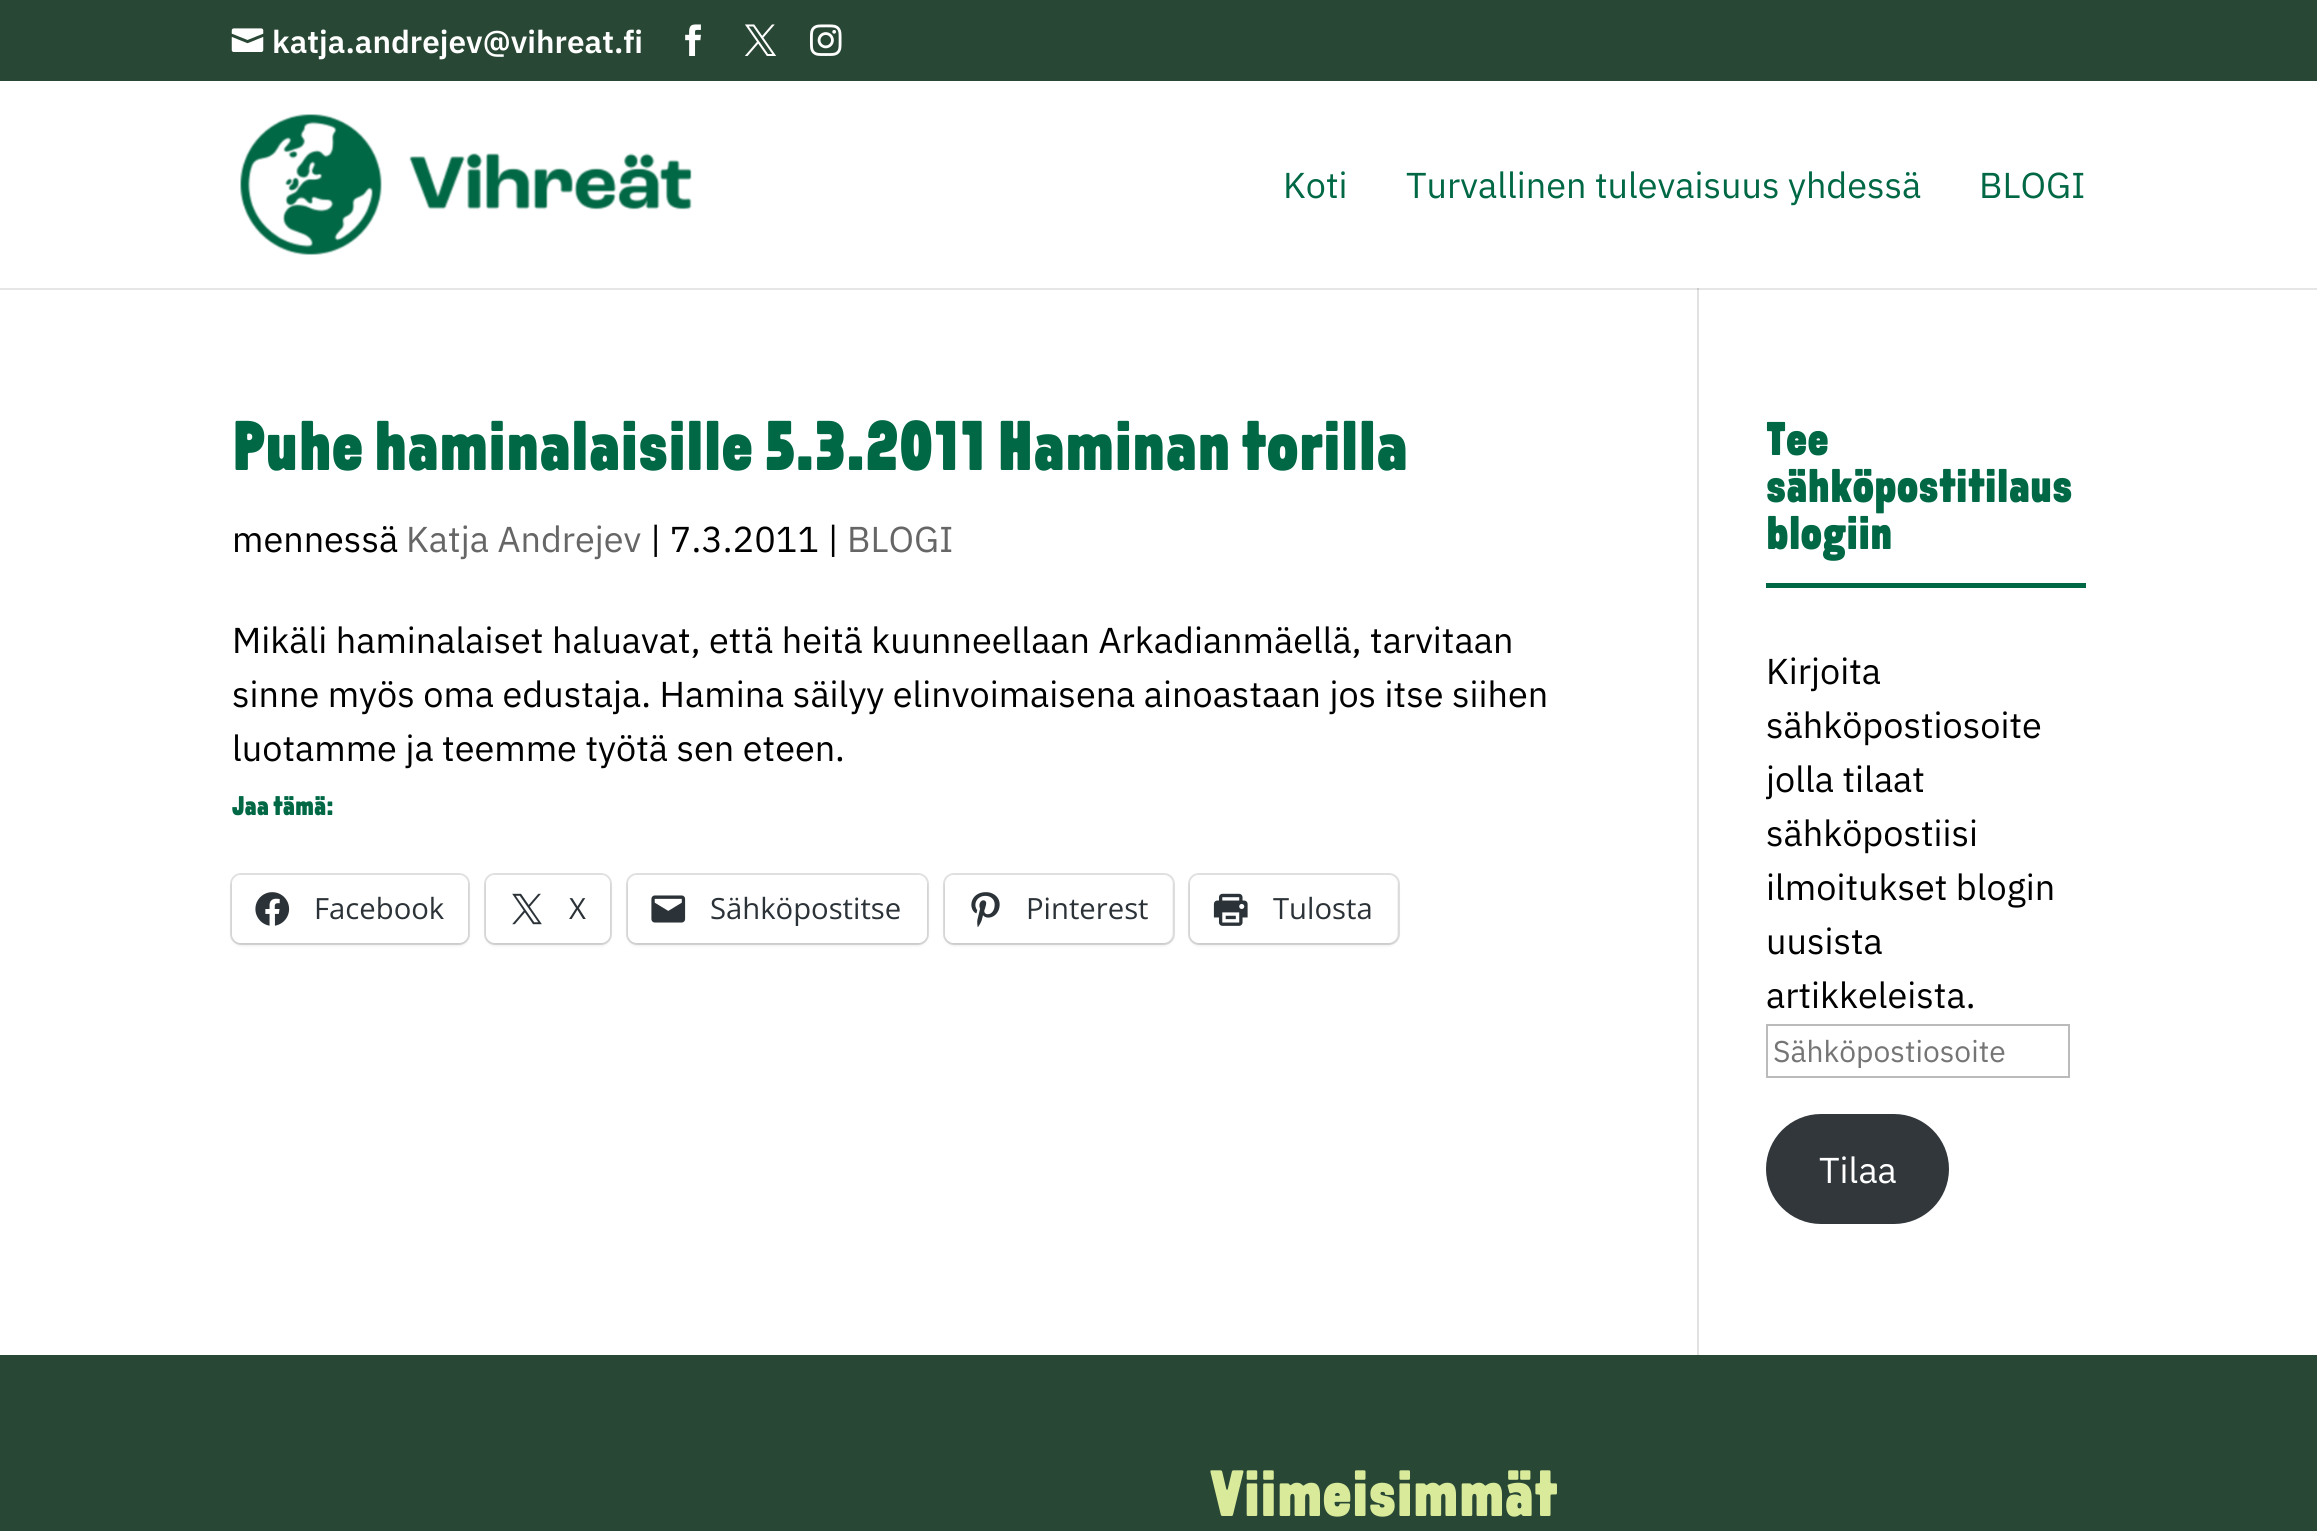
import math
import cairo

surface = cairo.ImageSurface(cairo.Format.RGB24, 2317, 1531)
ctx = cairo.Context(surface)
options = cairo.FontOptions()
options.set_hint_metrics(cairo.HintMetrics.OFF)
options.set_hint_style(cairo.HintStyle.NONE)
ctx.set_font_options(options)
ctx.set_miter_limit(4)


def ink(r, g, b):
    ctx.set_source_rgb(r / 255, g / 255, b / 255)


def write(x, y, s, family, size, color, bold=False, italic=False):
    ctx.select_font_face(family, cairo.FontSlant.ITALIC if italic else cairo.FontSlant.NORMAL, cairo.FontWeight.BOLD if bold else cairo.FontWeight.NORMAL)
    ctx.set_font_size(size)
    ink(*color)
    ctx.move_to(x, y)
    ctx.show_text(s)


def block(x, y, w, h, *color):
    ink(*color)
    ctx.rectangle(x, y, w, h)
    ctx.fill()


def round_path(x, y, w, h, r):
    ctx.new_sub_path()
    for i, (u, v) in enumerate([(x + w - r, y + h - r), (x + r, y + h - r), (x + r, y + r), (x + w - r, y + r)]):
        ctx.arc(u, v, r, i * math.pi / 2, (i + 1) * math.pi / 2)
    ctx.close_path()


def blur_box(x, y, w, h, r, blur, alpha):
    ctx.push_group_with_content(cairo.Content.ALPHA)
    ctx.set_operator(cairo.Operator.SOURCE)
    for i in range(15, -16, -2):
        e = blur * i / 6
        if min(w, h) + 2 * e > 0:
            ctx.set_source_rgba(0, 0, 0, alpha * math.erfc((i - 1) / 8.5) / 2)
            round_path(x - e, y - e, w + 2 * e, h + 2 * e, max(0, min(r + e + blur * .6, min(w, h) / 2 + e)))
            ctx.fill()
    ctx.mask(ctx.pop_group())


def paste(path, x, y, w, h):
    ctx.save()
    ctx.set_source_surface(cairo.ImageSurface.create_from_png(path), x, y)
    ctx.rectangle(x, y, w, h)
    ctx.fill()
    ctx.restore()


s1 = dict(family="IBM Plex Sans SemiBold", size=31.5, color=(255, 255, 255))
s2 = dict(family="IBM Plex Sans", size=36, color=(0, 104, 69))
s3 = dict(family="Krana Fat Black", size=70.25, color=(0, 104, 69))
s4 = dict(family="IBM Plex Sans", size=36, color=(0, 0, 0))
s5 = dict(family="IBM Plex Sans", size=36, color=(102, 102, 102))
s6 = dict(family="Krana Fat Black", size=27, color=(0, 104, 69))
s7 = dict(family="Open Sans", size=29.25, color=(44, 51, 56))
s8 = dict(family="Krana Fat Black", size=47.25, color=(0, 104, 69))
s9 = dict(family="IBM Plex Sans", size=30, color=(117, 117, 117))
s10 = dict(family="IBM Plex Sans", size=36, color=(255, 255, 255))
s11 = dict(family="Krana Fat Black", size=65.25, color=(217, 234, 154))

ink(255, 255, 255)
ctx.paint()
block(0, 0, 2317, 81, 40, 71, 52)
paste("pic1.png", 231, 28, 33, 24)
write(272, 53, "katja.andrejev@vihreat.fi", **s1)
paste("pic2.png", 685, 24, 16, 32)
paste("pic3.png", 745, 24, 32, 32)
paste("pic4.png", 810, 24, 32, 32)
block(1697, 288, 2, 1067, 226, 226, 226)
ctx.set_source_rgba(0, 0, 0, 0.1)
ctx.new_path()
ctx.move_to(0, 288)
ctx.line_to(0, 290)
ctx.line_to(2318, 290)
ctx.line_to(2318, 83)
ctx.line_to(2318, 288)
ctx.close_path()
ctx.fill()
paste("pic5.png", 240, 114, 452, 141)
write(1283, 198, "Koti", **s2)
write(1406, 198, "Turvallinen tulevaisuus yhdessä", **s2)
write(1979, 198, "BLOGI", **s2)
write(232, 470, "Puhe haminalaisille 5.3.2011 Haminan torilla", **s3)
write(232, 552, "mennessä", **s4)
write(406, 552, "Katja Andrejev", **s5)
write(650, 552, "| 7.3.2011 |", **s4)
write(847, 552, "BLOGI", **s5)
write(232, 653, "Mikäli haminalaiset haluavat, että heitä kuunneellaan Arkadianmäellä, tarvitaan", **s4)
write(232, 707, "sinne myös oma edustaja. Hamina säilyy elinvoimaisena ainoastaan jos itse siihen", **s4)
write(232, 761, "luotamme ja teemme työtä sen eteen.", **s4)
write(232, 815, "Jaa tämä:", **s6)
round_path(231, 874, 238, 70, 10)
ink(224, 224, 224)
ctx.stroke()
ink(0, 0, 0)
blur_box(232, 878, 236, 67, 9, 2, 0.12)
ink(255, 255, 255)
round_path(232, 875, 236, 68, 9)
ctx.fill()
paste("pic6.png", 255, 892, 35, 34)
write(314, 919, "Facebook", **s7)
round_path(485, 874, 126, 70, 10)
ink(224, 224, 224)
ctx.stroke()
ink(0, 0, 0)
blur_box(486, 878, 124, 67, 9, 2, 0.12)
ink(255, 255, 255)
round_path(486, 875, 124, 68, 9)
ctx.fill()
paste("pic7.png", 512, 893, 30, 32)
write(569, 919, "X", **s7)
round_path(627, 874, 301, 70, 10)
ink(224, 224, 224)
ctx.stroke()
ink(0, 0, 0)
blur_box(628, 878, 299, 67, 9, 2, 0.12)
ink(255, 255, 255)
round_path(628, 875, 299, 68, 9)
ctx.fill()
paste("pic8.png", 651, 895, 35, 28)
write(710, 919, "Sähköpostitse", **s7)
round_path(944, 874, 230, 70, 10)
ink(224, 224, 224)
ctx.stroke()
ink(0, 0, 0)
blur_box(945, 878, 227, 67, 9, 2, 0.12)
ink(255, 255, 255)
round_path(945, 875, 227, 68, 9)
ctx.fill()
paste("pic9.png", 971, 892, 29, 36)
write(1026, 919, "Pinterest", **s7)
round_path(1189, 874, 210, 70, 10)
ink(224, 224, 224)
ctx.stroke()
ink(0, 0, 0)
blur_box(1190, 878, 207, 67, 9, 2, 0.12)
ink(255, 255, 255)
round_path(1190, 875, 207, 68, 9)
ctx.fill()
paste("pic10.png", 1213, 893, 35, 33)
write(1273, 919, "Tulosta", **s7)
block(1766, 583, 320, 5, 0, 104, 69)
write(1766, 455, "Tee", **s8)
write(1766, 502, "sähköpostitilaus", **s8)
write(1766, 549, "blogiin", **s8)
write(1766, 684, "Kirjoita", **s4)
write(1766, 738, "sähköpostiosoite", **s4)
write(1766, 792, "jolla tilaat", **s4)
write(1766, 846, "sähköpostiisi", **s4)
write(1766, 900, "ilmoitukset blogin", **s4)
write(1766, 954, "uusista", **s4)
write(1766, 1008, "artikkeleista.", **s4)
ctx.rectangle(1767, 1025, 302, 52)
ink(187, 187, 187)
ctx.stroke()
write(1773, 1062, "Sähköpostiosoite", **s9)
ink(50, 55, 60)
round_path(1766, 1114, 183, 110, 55)
ctx.fill()
write(1819, 1183, "Tilaa", **s10)
block(0, 1355, 2317, 176, 40, 71, 52)
write(1210, 1516, "Viimeisimmät", **s11)
surface.write_to_png("screenshot.png")
